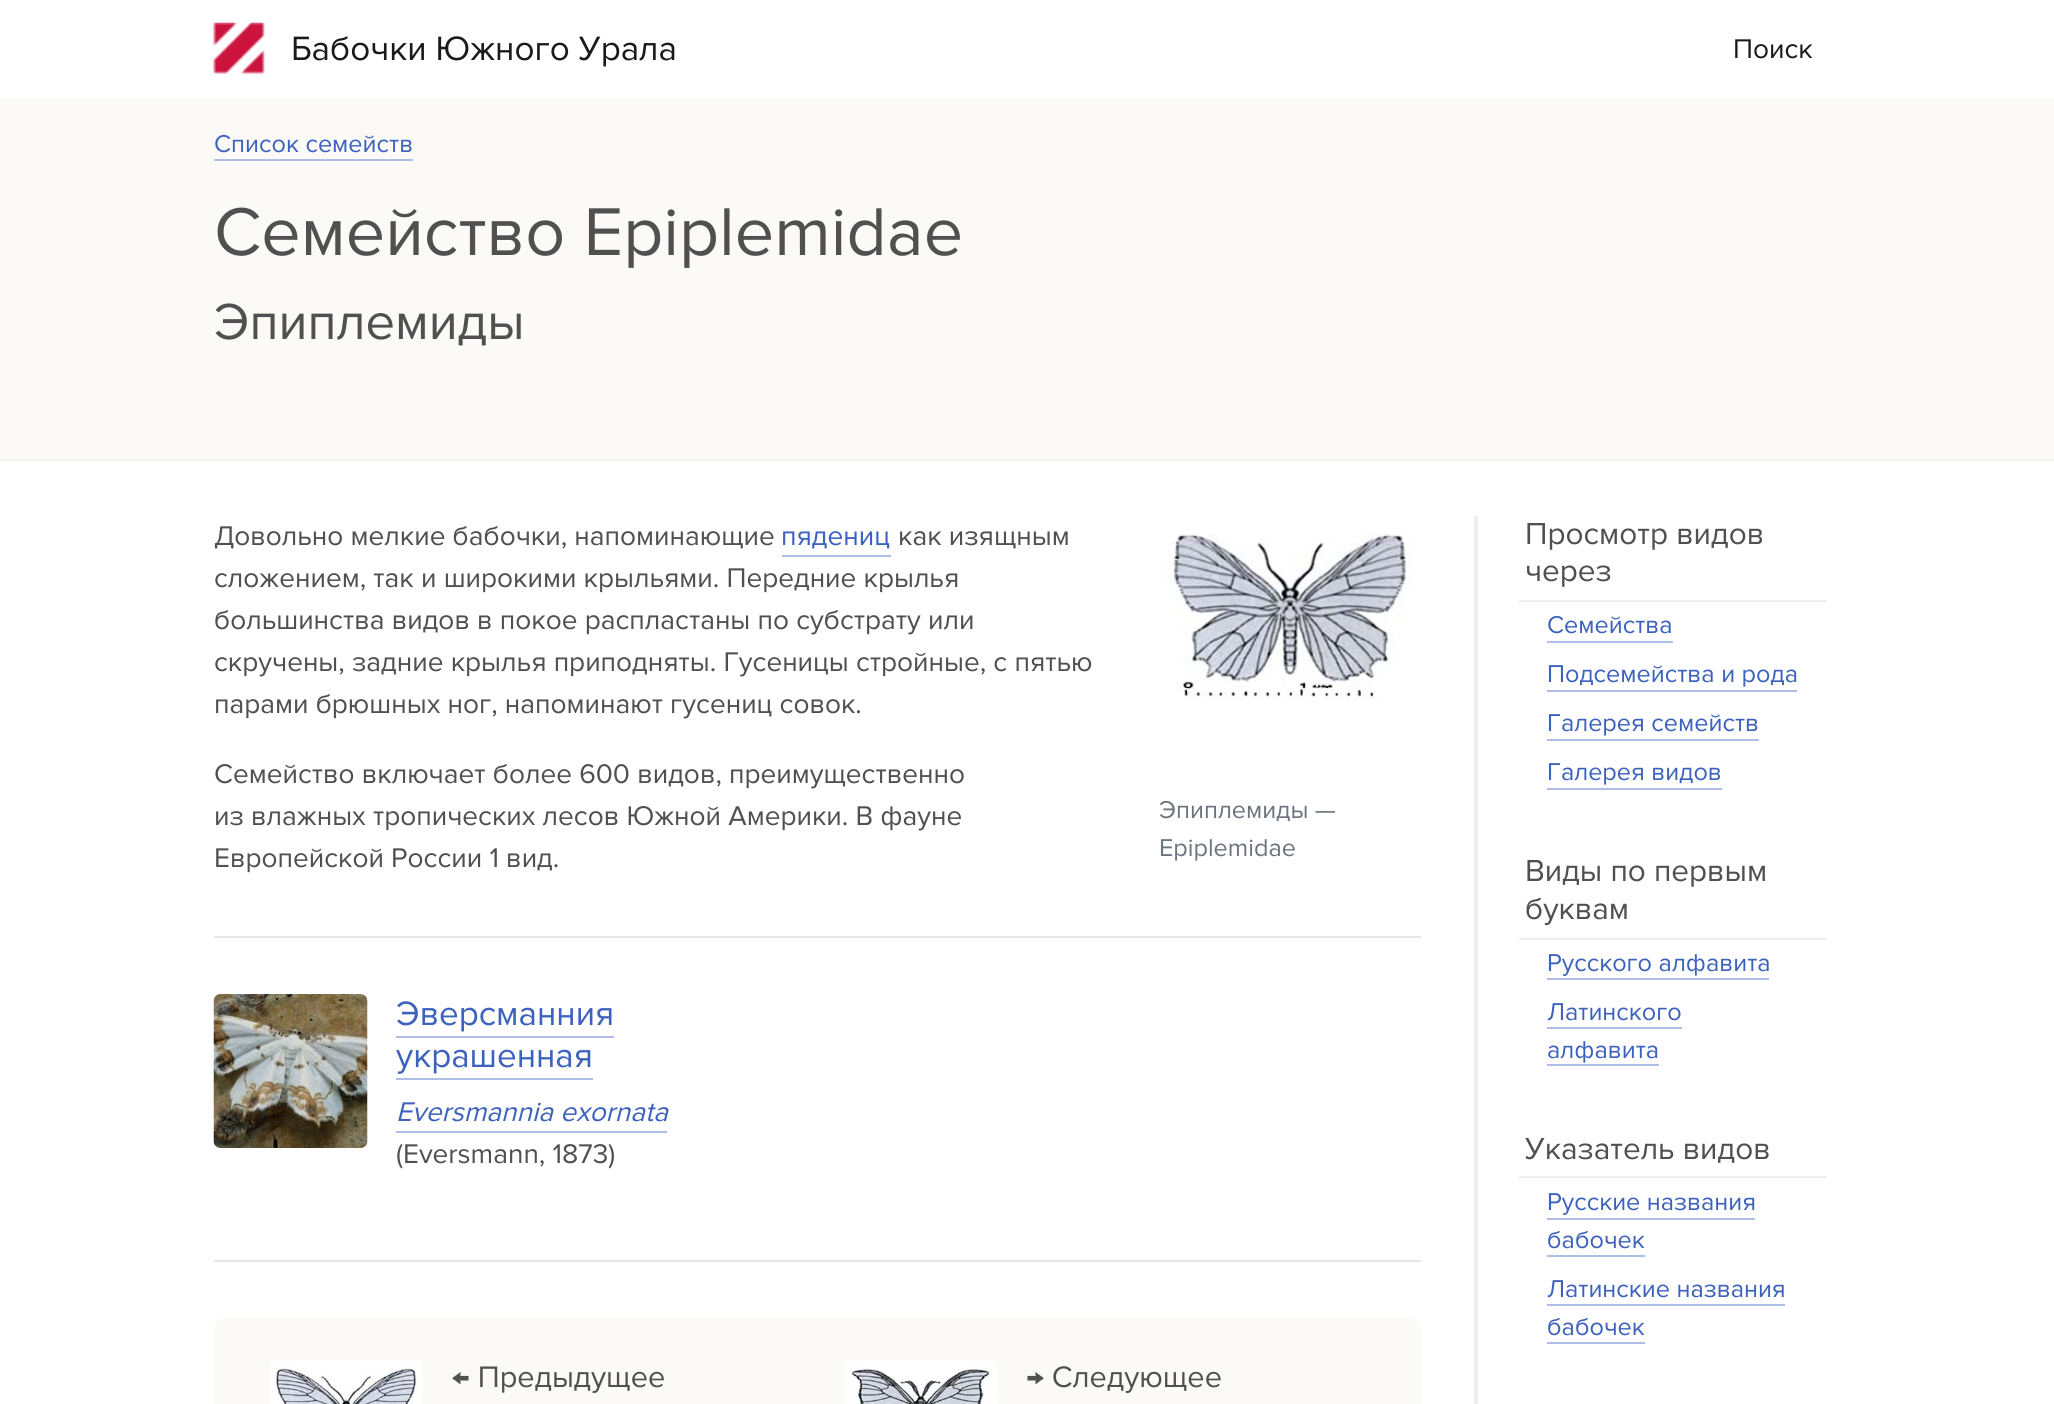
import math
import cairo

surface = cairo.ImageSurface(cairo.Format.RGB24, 2054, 1404)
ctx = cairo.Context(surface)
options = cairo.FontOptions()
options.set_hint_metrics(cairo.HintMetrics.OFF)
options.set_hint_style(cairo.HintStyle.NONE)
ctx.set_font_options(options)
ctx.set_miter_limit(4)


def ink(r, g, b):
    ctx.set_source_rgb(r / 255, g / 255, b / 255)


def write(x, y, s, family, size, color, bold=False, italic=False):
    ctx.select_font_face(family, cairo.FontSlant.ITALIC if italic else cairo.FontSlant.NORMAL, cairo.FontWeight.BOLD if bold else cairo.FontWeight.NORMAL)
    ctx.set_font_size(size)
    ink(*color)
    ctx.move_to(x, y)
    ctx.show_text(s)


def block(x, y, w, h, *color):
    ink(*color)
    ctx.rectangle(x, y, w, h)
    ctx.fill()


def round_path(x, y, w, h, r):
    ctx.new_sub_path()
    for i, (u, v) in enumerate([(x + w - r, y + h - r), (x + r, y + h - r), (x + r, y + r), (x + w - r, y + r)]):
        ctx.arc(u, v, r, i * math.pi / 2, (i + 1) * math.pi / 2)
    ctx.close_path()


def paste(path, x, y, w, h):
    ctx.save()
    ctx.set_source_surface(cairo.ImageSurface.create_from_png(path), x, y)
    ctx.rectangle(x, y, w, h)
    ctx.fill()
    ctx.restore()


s1 = dict(family="Proxima Nova", size=35, color=(26, 26, 26))
s2 = dict(family="Proxima Nova", size=28, color=(26, 26, 26))
s3 = dict(family="Proxima Nova", size=25.25, color=(61, 98, 189))
s4 = dict(family="Proxima Nova", size=70, color=(81, 80, 80))
s5 = dict(family="Proxima Nova", size=52.5, color=(81, 80, 80))
s6 = dict(family="Proxima Nova", size=28, color=(81, 80, 80))
s7 = dict(family="Proxima Nova", size=28, color=(61, 98, 189))
s8 = dict(family="Proxima Nova", size=25.25, color=(108, 117, 125))
s9 = dict(family="Proxima Nova", size=35, color=(61, 98, 189))
s10 = dict(family="Proxima Nova", size=28, color=(61, 98, 189), italic=True)
s11 = dict(family="Proxima Nova", size=30.75, color=(81, 80, 80))
s12 = dict(family="Proxima Nova", size=31.5, color=(81, 80, 80))

ink(255, 255, 255)
ctx.paint()
paste("pic1.png", 213, 22, 52, 52)
write(291, 60, "Бабочки Южного Урала", **s1)
write(1733, 58, "Поиск", **s2)
block(0, 98, 2054, 361, 251, 250, 246)
block(0, 459, 2054, 2, 242, 242, 242)
write(214, 152, "Список семейств", **s3)
block(214, 159, 199, 2, 174, 190, 230)
write(214, 255, "Семейство Epiplemidae", **s4)
write(214, 339, "Эпиплемиды", **s5)
write(214, 545, "Довольно мелкие бабочки, напоминающие", **s6)
write(781, 545, "пядениц", **s7)
block(782, 555, 109, 2, 174, 190, 230)
write(898, 545, "как изящным", **s6)
write(214, 587, "сложением, так и широкими крыльями. Передние крылья", **s6)
write(214, 629, "большинства видов в покое распластаны по субстрату или", **s6)
write(214, 671, "скручены, задние крылья приподняты. Гусеницы стройные, с пятью", **s6)
write(214, 713, "парами брюшных ног, напоминают гусениц совок.", **s6)
write(214, 783, "Семейство включает более 600 видов, преимущественно", **s6)
write(214, 825, "из влажных тропических лесов Южной Америки. В фауне", **s6)
write(214, 867, "Европейской России 1 вид.", **s6)
paste("pic2.png", 1163, 534, 249, 166)
write(1159, 818, "Эпиплемиды —", **s8)
write(1159, 856, "Epiplemidae", **s8)
block(214, 936, 1207, 2, 230, 230, 230)
paste("pic3.png", 213, 994, 155, 154)
write(396, 1025, "Эверсманния", **s9)
block(396, 1036, 218, 2, 174, 190, 230)
write(396, 1067, "украшенная", **s9)
block(396, 1078, 197, 2, 174, 190, 230)
write(396, 1121, "Eversmannia exornata", **s10)
block(396, 1131, 271, 2, 174, 190, 230)
write(396, 1163, "(Eversmann, 1873)", **s6)
block(214, 1260, 1207, 2, 230, 230, 230)
ink(251, 250, 246)
round_path(214, 1318, 1207, 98, 12)
ctx.fill()
paste("pic4.png", 270, 1360, 153, 44)
write(452, 1387, "← Предыдущее", **s11)
paste("pic5.png", 844, 1360, 153, 44)
write(1026, 1387, "→ Следующее", **s11)
block(1474, 516, 4, 888, 238, 238, 238)
block(1519, 600, 308, 2, 238, 238, 238)
write(1525, 544, "Просмотр видов", **s12)
write(1525, 581, "через", **s12)
write(1547, 633, "Семейства", **s3)
block(1547, 641, 126, 2, 174, 190, 230)
write(1547, 682, "Подсемейства и рода", **s3)
block(1547, 690, 250, 2, 174, 190, 230)
write(1547, 731, "Галерея семейств", **s3)
block(1547, 739, 212, 2, 174, 190, 230)
write(1547, 780, "Галерея видов", **s3)
block(1547, 788, 175, 2, 174, 190, 230)
block(1519, 938, 308, 2, 238, 238, 238)
write(1525, 881, "Виды по первым", **s12)
write(1525, 919, "буквам", **s12)
write(1547, 971, "Русского алфавита", **s3)
block(1547, 978, 222, 2, 174, 190, 230)
write(1547, 1020, "Латинского", **s3)
block(1547, 1027, 135, 2, 174, 190, 230)
write(1547, 1058, "алфавита", **s3)
block(1547, 1064, 112, 2, 174, 190, 230)
block(1519, 1176, 308, 2, 238, 238, 238)
write(1525, 1159, "Указатель видов", **s12)
write(1547, 1210, "Русские названия", **s3)
block(1547, 1218, 208, 2, 174, 190, 230)
write(1547, 1248, "бабочек", **s3)
block(1547, 1255, 98, 2, 174, 190, 230)
write(1547, 1297, "Латинские названия", **s3)
block(1547, 1304, 238, 2, 174, 190, 230)
write(1547, 1335, "бабочек", **s3)
block(1547, 1342, 98, 2, 174, 190, 230)
surface.write_to_png("screenshot.png")
